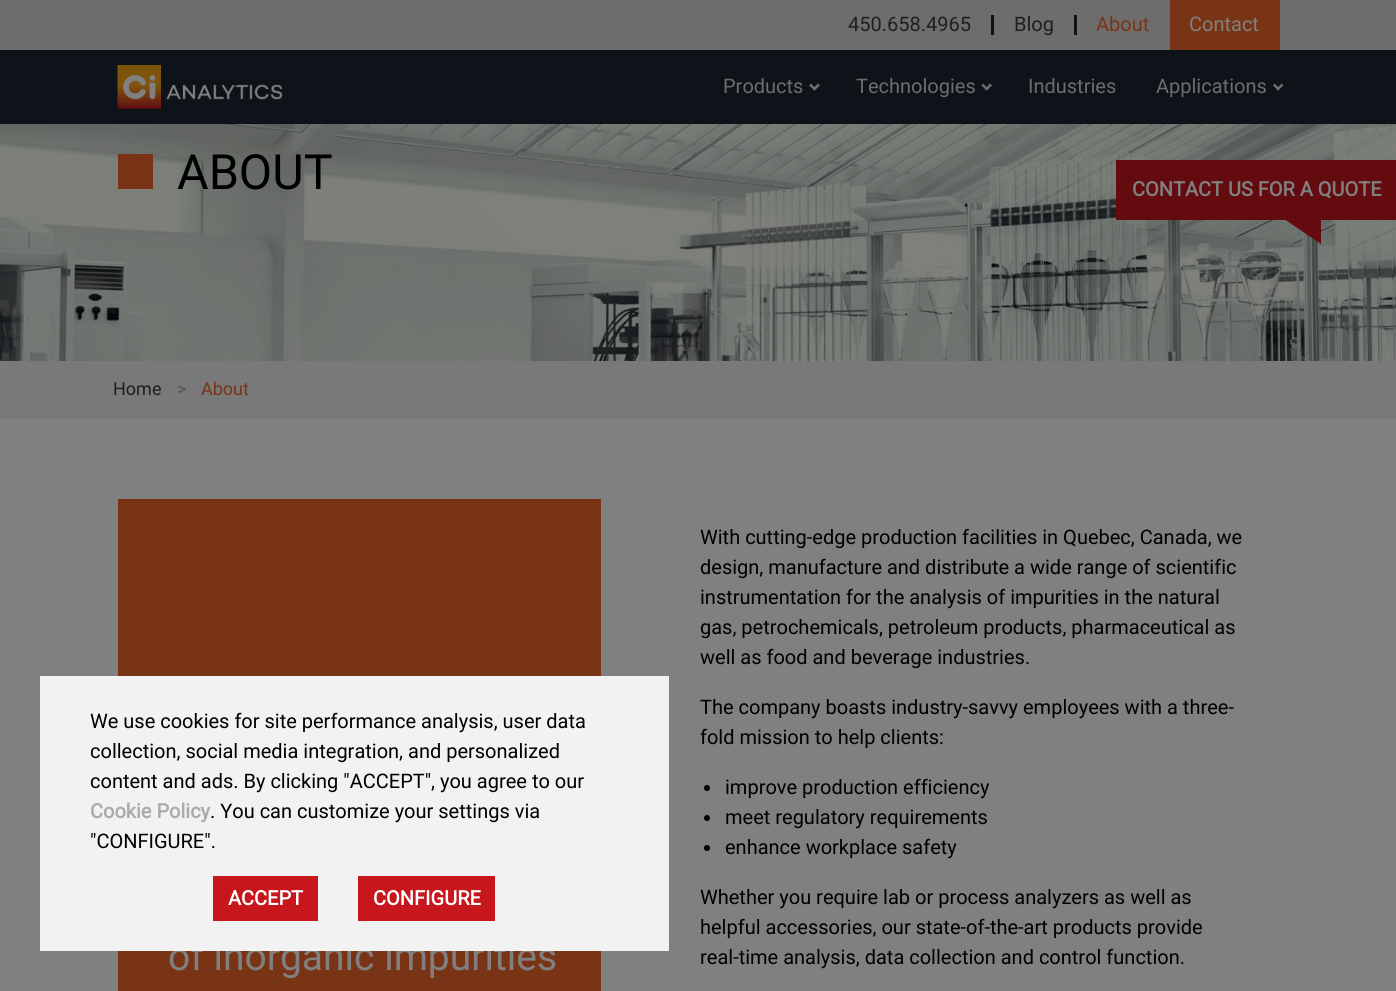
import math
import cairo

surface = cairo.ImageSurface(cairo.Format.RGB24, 1396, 991)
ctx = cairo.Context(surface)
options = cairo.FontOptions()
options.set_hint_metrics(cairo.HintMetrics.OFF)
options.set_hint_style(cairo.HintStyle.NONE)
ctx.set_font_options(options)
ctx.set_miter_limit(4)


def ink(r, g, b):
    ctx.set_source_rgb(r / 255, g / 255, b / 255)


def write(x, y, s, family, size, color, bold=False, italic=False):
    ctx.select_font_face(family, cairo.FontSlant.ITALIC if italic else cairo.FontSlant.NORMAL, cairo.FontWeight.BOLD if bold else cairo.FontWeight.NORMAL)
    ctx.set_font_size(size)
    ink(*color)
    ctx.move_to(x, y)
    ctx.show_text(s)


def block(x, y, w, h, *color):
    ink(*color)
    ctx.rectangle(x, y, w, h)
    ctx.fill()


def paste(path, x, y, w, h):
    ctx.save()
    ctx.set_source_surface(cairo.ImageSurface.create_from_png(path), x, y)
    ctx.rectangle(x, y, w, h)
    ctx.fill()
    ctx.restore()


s1 = dict(family="Roboto", size=20, color=(31, 31, 31))
s2 = dict(family="Roboto", size=20, color=(121, 52, 21))
s3 = dict(family="Roboto", size=20, color=(128, 128, 128))
s4 = dict(family="Roboto", size=20, color=(110, 109, 109))
s5 = dict(family="Roboto", size=48.5, color=(0, 0, 0))
s6 = dict(family="Roboto", size=18, color=(31, 31, 31))
s7 = dict(family="Roboto", size=18, color=(85, 85, 85))
s8 = dict(family="Roboto", size=18, color=(121, 52, 21))
s9 = dict(family="Roboto", size=39, color=(128, 128, 128))
s10 = dict(family="Roboto", size=20, color=(0, 0, 0))
s11 = dict(family="Roboto", size=20, color=(128, 128, 128), bold=True)
s12 = dict(family="Roboto", size=20, color=(170, 170, 170), bold=True)
s13 = dict(family="Roboto", size=20, color=(255, 255, 255), bold=True)

ink(128, 128, 128)
ctx.paint()
block(0, 0, 1396, 50, 110, 109, 109)
write(848, 31, "450.658.4965", **s1)
block(991, 15, 3, 20, 13, 19, 24)
write(1014, 31, "Blog", **s1)
block(1074, 15, 3, 20, 13, 19, 24)
write(1096, 31, "About", **s2)
block(1170, 0, 110, 50, 121, 52, 21)
write(1189, 31, "Contact", **s3)
block(0, 50, 1396, 74, 13, 19, 24)
paste("pic1.png", 117, 65, 166, 44)
write(723, 93, "Products", **s4)
ctx.new_path()
ctx.move_to(820, 85.5)
ctx.line_to(814.5, 90.5)
ctx.line_to(812.5, 89)
ctx.line_to(818, 83.5)
ctx.close_path()
ctx.fill()
ctx.new_path()
ctx.move_to(816, 89)
ctx.line_to(814.5, 90.5)
ctx.line_to(809, 85.5)
ctx.line_to(811, 83.5)
ctx.close_path()
ctx.fill()
write(856, 93, "Technologies", **s4)
ctx.new_path()
ctx.move_to(992, 85.5)
ctx.line_to(986.5, 90.5)
ctx.line_to(985, 89)
ctx.line_to(990, 83.5)
ctx.close_path()
ctx.fill()
ctx.new_path()
ctx.move_to(988.5, 89)
ctx.line_to(986.5, 90.5)
ctx.line_to(981.5, 85.5)
ctx.line_to(983, 83.5)
ctx.close_path()
ctx.fill()
write(1028, 93, "Industries", **s4)
write(1156, 93, "Applications", **s4)
ctx.new_path()
ctx.move_to(1283.5, 85.5)
ctx.line_to(1278, 90.5)
ctx.line_to(1276.5, 89)
ctx.line_to(1281.5, 83.5)
ctx.close_path()
ctx.fill()
ctx.new_path()
ctx.move_to(1280, 89)
ctx.line_to(1278, 90.5)
ctx.line_to(1273, 85.5)
ctx.line_to(1274.5, 83.5)
ctx.close_path()
ctx.fill()
paste("pic2.png", 0, 124, 1396, 237)
block(118, 154, 35, 35, 121, 52, 21)
write(177, 189, "ABOUT", **s5)
block(0, 361, 1396, 58, 121, 121, 121)
write(113, 395, "Home", **s6)
write(177, 395, ">", **s7)
write(201, 395, "About", **s8)
block(118, 499, 483, 492, 121, 52, 21)
write(168, 970, "of inorganic impurities", **s9)
write(700, 544, "With cutting-edge production facilities in Quebec, Canada, we", **s10)
write(700, 574, "design, manufacture and distribute a wide range of scientific", **s10)
write(700, 604, "instrumentation for the analysis of impurities in the natural", **s10)
write(700, 634, "gas, petrochemicals, petroleum products, pharmaceutical as", **s10)
write(700, 664, "well as food and beverage industries.", **s10)
write(700, 714, "The company boasts industry-savvy employees with a three-", **s10)
write(700, 744, "fold mission to help clients:", **s10)
ctx.new_path()
ctx.arc(707, 788, 3, 0, 2 * math.pi)
ctx.fill()
write(725, 794, "improve production efficiency", **s10)
ctx.new_path()
ctx.arc(707, 818, 3, 0, 2 * math.pi)
ctx.fill()
write(725, 824, "meet regulatory requirements", **s10)
ctx.new_path()
ctx.arc(707, 848, 3, 0, 2 * math.pi)
ctx.fill()
write(725, 854, "enhance workplace safety", **s10)
write(700, 904, "Whether you require lab or process analyzers as well as", **s10)
write(700, 934, "helpful accessories, our state-of-the-art products provide", **s10)
write(700, 964, "real-time analysis, data collection and control function.", **s10)
block(1116, 160, 280, 60, 100, 11, 15)
write(1132, 196, "CONTACT US FOR A QUOTE", **s11)
ink(100, 11, 15)
ctx.new_path()
ctx.move_to(1284, 219)
ctx.line_to(1321, 219)
ctx.line_to(1321, 244)
ctx.close_path()
ctx.fill()
block(40, 676, 629, 275, 242, 242, 242)
write(90, 728, "We use cookies for site performance analysis, user data", **s10)
write(90, 758, "collection, social media integration, and personalized", **s10)
write(90, 788, "content and ads. By clicking \"ACCEPT\", you agree to our", **s10)
write(90, 818, "Cookie Policy", **s12)
write(210, 818, ". You can customize your settings via", **s10)
write(90, 848, "\"CONFIGURE\".", **s10)
block(213, 876, 105, 45, 200, 22, 29)
write(228, 905, "ACCEPT", **s13)
block(358, 876, 137, 45, 200, 22, 29)
write(373, 905, "CONFIGURE", **s13)
surface.write_to_png("screenshot.png")
